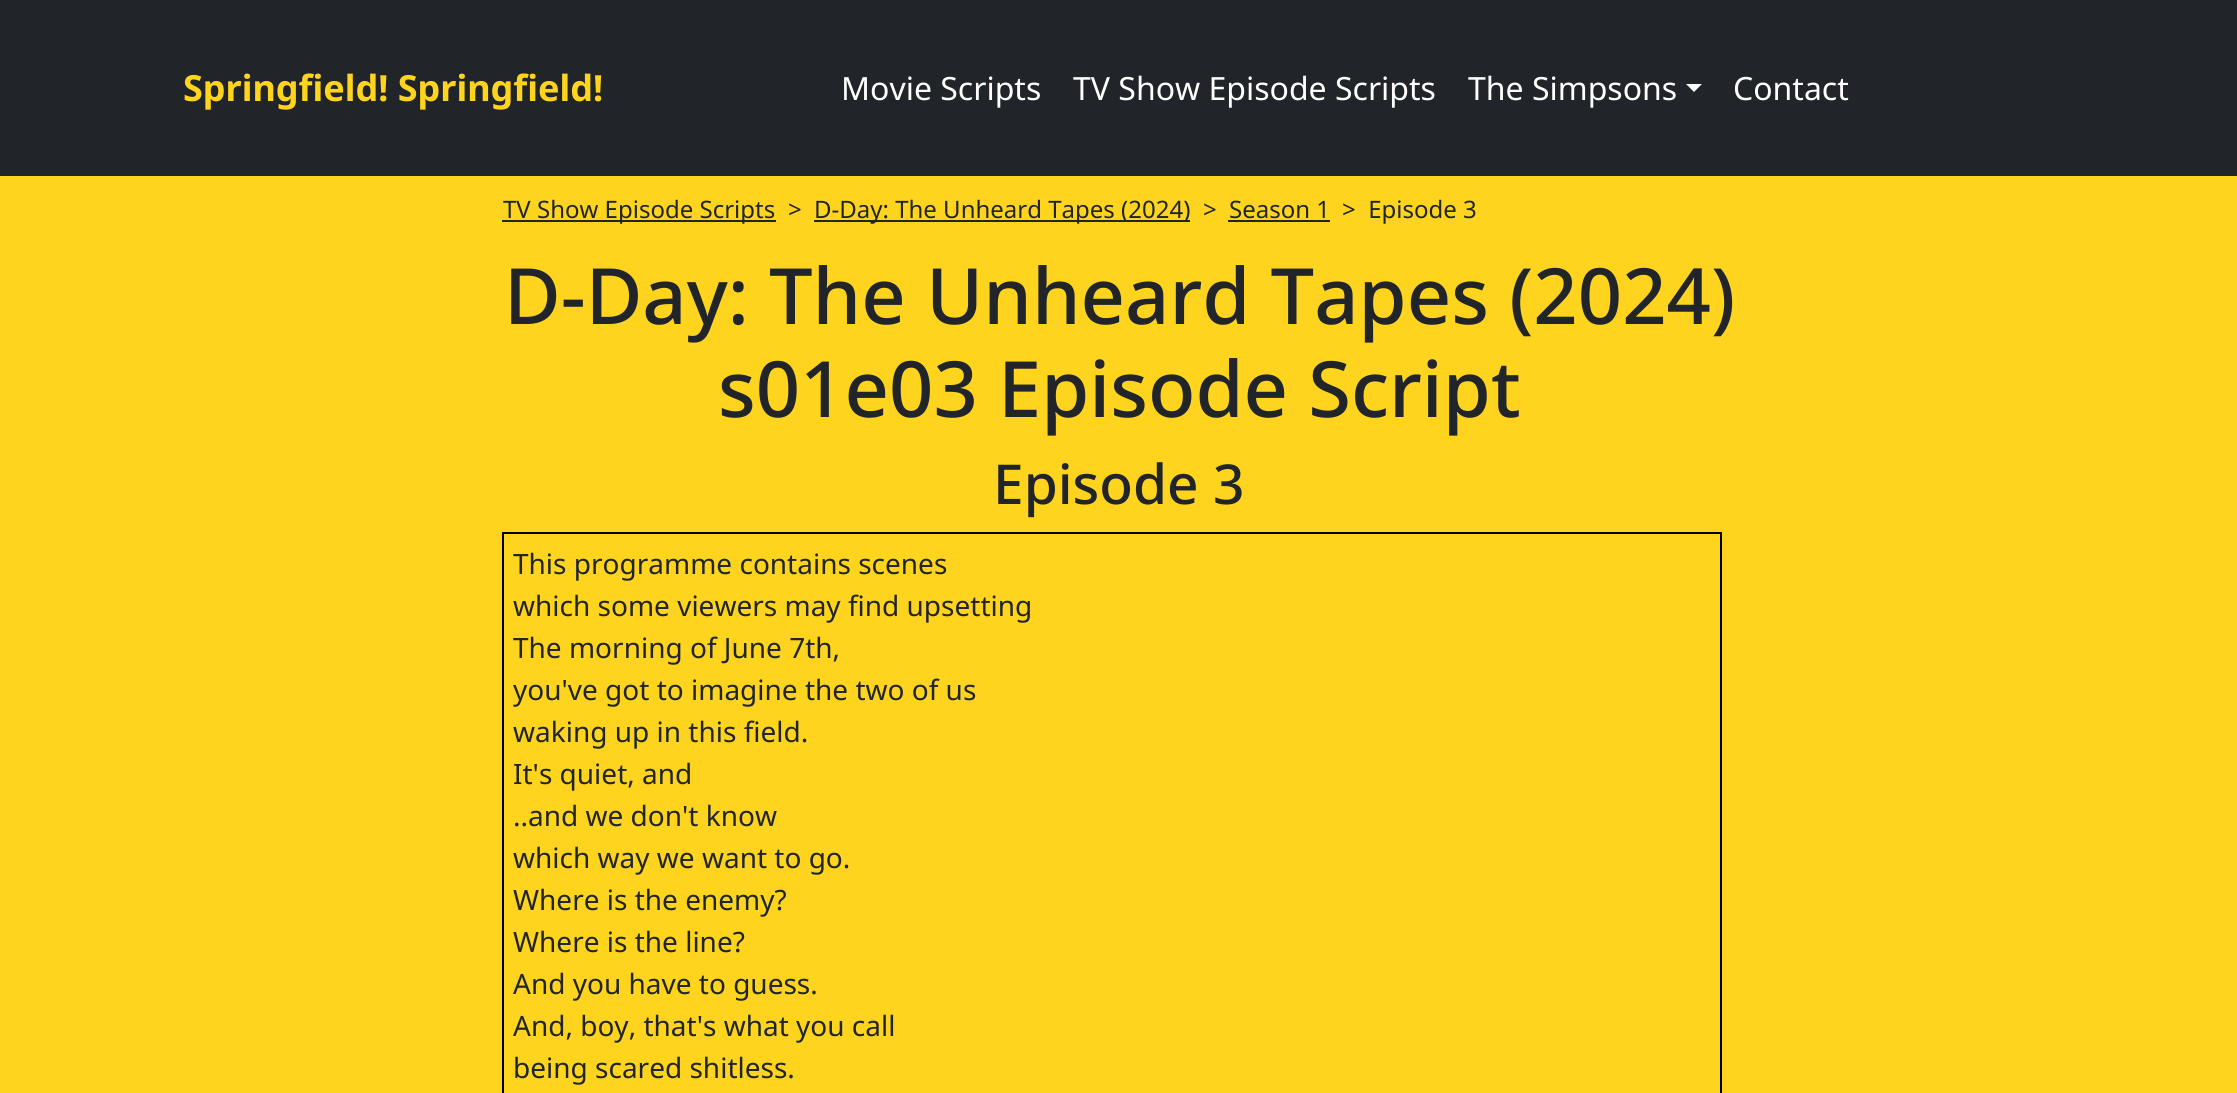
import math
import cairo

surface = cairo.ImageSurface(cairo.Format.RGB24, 2237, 1093)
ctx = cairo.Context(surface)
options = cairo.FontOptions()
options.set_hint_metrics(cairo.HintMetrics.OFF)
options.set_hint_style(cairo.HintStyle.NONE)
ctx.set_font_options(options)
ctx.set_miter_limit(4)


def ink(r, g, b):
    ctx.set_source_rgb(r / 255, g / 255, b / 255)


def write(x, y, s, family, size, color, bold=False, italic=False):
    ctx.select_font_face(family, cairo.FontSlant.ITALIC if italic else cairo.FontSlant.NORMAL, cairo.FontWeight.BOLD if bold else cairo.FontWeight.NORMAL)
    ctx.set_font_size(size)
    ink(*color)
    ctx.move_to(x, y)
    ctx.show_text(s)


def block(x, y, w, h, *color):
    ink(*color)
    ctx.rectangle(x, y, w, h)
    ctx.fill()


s1 = dict(family="Noto Sans", size=36, color=(254, 212, 30), bold=True)
s2 = dict(family="Noto Sans", size=32, color=(255, 255, 255))
s3 = dict(family="Noto Sans", size=24, color=(33, 37, 41))
s4 = dict(family="Noto Sans Medium", size=77.6, color=(33, 37, 41))
s5 = dict(family="Noto Sans Medium", size=55, color=(33, 37, 41))
s6 = dict(family="Noto Sans", size=28, color=(33, 37, 41))

ink(254, 212, 30)
ctx.paint()
block(0, 0, 2237, 176, 33, 37, 41)
write(183, 101, "Springfield! Springfield!", **s1)
write(841, 100, "Movie Scripts", **s2)
write(1073, 100, "TV Show Episode Scripts", **s2)
write(1468, 100, "The Simpsons", **s2)
ctx.new_path()
ctx.move_to(1686, 84)
ctx.line_to(1702, 84)
ctx.line_to(1694, 92)
ctx.close_path()
ctx.fill()
write(1733, 100, "Contact", **s2)
block(502, 220, 274, 2, 33, 37, 41)
write(503, 218, "TV Show Episode Scripts", **s3)
write(788, 218, ">", **s3)
block(814, 220, 376, 2, 33, 37, 41)
write(814, 218, "D-Day: The Unheard Tapes (2024)", **s3)
write(1203, 218, ">", **s3)
write(1229, 218, "Season 1", **s3)
block(1228, 220, 102, 2, 33, 37, 41)
write(1342, 218, ">  Episode 3", **s3)
write(504, 324, "D-Day: The Unheard Tapes (2024)", **s4)
write(718, 417, "s01e03 Episode Script", **s4)
write(993, 504, "Episode 3", **s5)
ctx.rectangle(503, 533, 1218, 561)
ink(0, 0, 0)
ctx.stroke()
write(513, 574, "This programme contains scenes", **s6)
write(513, 616, "which some viewers may find upsetting", **s6)
write(513, 658, "The morning of June 7th,", **s6)
write(513, 700, "you've got to imagine the two of us", **s6)
write(513, 742, "waking up in this field.", **s6)
write(513, 784, "It's quiet, and", **s6)
write(513, 826, "..and we don't know", **s6)
write(513, 868, "which way we want to go.", **s6)
write(513, 910, "Where is the enemy?", **s6)
write(513, 952, "Where is the line?", **s6)
write(513, 994, "And you have to guess.", **s6)
write(513, 1036, "And, boy, that's what you call", **s6)
write(513, 1078, "being scared shitless.", **s6)
surface.write_to_png("screenshot.png")
